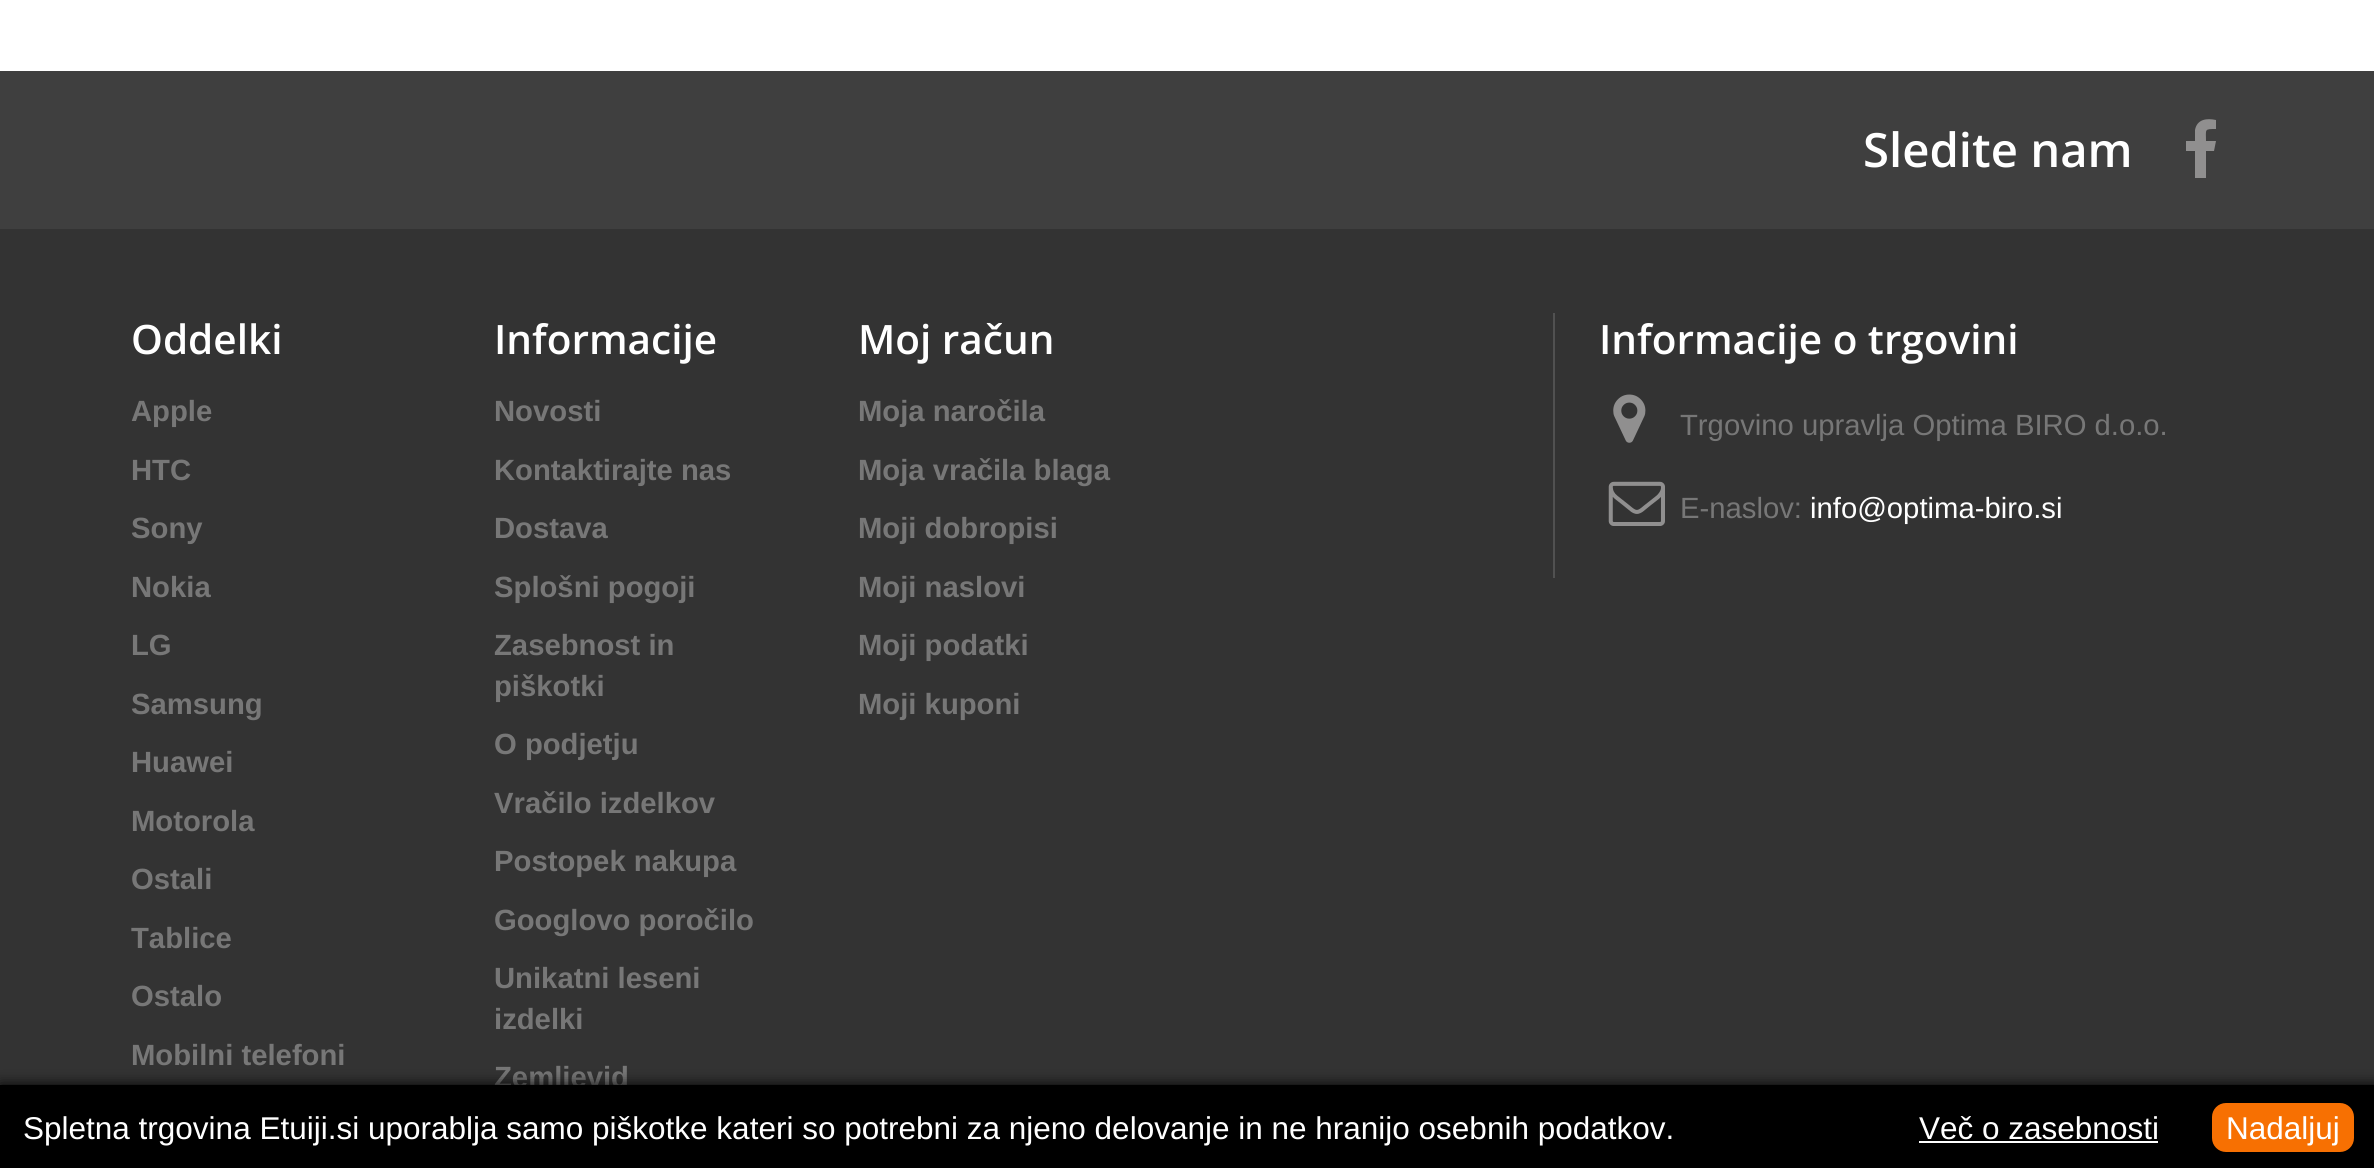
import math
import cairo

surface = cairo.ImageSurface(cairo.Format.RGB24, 2374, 1168)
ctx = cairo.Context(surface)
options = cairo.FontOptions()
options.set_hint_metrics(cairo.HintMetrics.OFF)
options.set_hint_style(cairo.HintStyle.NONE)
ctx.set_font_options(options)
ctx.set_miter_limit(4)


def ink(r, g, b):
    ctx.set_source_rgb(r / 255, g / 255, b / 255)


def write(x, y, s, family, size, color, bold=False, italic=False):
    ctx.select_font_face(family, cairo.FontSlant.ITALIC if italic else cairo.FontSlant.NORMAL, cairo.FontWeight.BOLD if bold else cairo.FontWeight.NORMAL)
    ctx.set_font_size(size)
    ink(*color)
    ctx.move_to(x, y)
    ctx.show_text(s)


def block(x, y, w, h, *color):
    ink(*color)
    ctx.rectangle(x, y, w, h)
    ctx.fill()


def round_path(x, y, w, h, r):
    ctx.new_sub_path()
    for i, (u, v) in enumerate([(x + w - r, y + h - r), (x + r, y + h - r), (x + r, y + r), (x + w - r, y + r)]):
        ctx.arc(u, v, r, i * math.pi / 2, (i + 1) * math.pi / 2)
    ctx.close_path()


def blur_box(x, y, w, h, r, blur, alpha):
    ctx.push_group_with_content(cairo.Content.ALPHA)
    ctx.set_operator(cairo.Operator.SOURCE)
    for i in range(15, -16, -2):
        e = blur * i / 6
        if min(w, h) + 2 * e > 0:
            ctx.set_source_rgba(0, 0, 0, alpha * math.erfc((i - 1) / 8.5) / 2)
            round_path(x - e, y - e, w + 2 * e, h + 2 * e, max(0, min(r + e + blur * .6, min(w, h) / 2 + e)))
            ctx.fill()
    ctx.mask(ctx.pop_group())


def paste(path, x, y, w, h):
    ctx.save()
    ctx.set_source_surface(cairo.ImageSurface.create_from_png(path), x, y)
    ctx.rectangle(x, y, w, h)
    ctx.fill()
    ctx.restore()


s1 = dict(family="Open Sans SemiBold", size=47.25, color=(255, 255, 255))
s2 = dict(family="Open Sans SemiBold", size=40.5, color=(255, 255, 255))
s3 = dict(family="Liberation Sans", size=29.25, color=(119, 119, 119), bold=True)
s4 = dict(family="Liberation Sans", size=29.25, color=(119, 119, 119))
s5 = dict(family="Liberation Sans", size=29.25, color=(255, 255, 255))
s6 = dict(family="Liberation Sans", size=31.5, color=(255, 255, 255))

ink(255, 255, 255)
ctx.paint()
block(0, 229, 2374, 856, 51, 51, 51)
block(0, 71, 2374, 158, 63, 63, 63)
write(1863, 167, "Sledite nam", **s1)
ink(144, 143, 143)
ctx.new_path()
ctx.move_to(2216, 120)
ctx.line_to(2216, 129)
ctx.curve_to(2204, 129, 2206, 129, 2206, 141)
ctx.line_to(2216, 141)
ctx.line_to(2214, 151)
ctx.line_to(2206, 151)
ctx.line_to(2206, 178)
ctx.line_to(2195, 178)
ctx.line_to(2195, 151)
ctx.line_to(2186, 151)
ctx.line_to(2186, 141)
ctx.line_to(2195, 141)
ctx.line_to(2195, 130)
ctx.curve_to(2197, 119, 2207, 118, 2216, 120)
ctx.close_path()
ctx.fill()
write(131, 354, "Oddelki", **s2)
write(131, 421, "Apple", **s3)
write(131, 480, "HTC", **s3)
write(131, 538, "Sony", **s3)
write(131, 597, "Nokia", **s3)
write(131, 655, "LG", **s3)
write(131, 714, "Samsung", **s3)
write(131, 772, "Huawei", **s3)
write(131, 831, "Motorola", **s3)
write(131, 889, "Ostali", **s3)
write(131, 948, "Tablice", **s3)
write(131, 1006, "Ostalo", **s3)
write(131, 1065, "Mobilni telefoni", **s3)
write(494, 354, "Informacije", **s2)
write(494, 421, "Novosti", **s3)
write(494, 480, "Kontaktirajte nas", **s3)
write(494, 538, "Dostava", **s3)
write(494, 597, "Splošni pogoji", **s3)
write(494, 655, "Zasebnost in", **s3)
write(494, 696, "piškotki", **s3)
write(494, 754, "O podjetju", **s3)
write(494, 813, "Vračilo izdelkov", **s3)
write(494, 871, "Postopek nakupa", **s3)
write(494, 930, "Googlovo poročilo", **s3)
write(494, 988, "Unikatni leseni", **s3)
write(494, 1029, "izdelki", **s3)
write(494, 1087, "Zemljevid", **s3)
write(858, 354, "Moj račun", **s2)
write(858, 421, "Moja naročila", **s3)
write(858, 480, "Moja vračila blaga", **s3)
write(858, 538, "Moji dobropisi", **s3)
write(858, 597, "Moji naslovi", **s3)
write(858, 655, "Moji podatki", **s3)
write(858, 714, "Moji kuponi", **s3)
block(1553, 313, 2, 265, 81, 81, 81)
write(1599, 354, "Informacije o trgovini", **s2)
paste("pic1.png", 1613, 394, 33, 49)
write(1680, 435, "Trgovino upravlja Optima BIRO d.o.o.", **s4)
paste("pic2.png", 1608, 481, 57, 45)
write(1680, 518, "E-naslov:", **s4)
write(1810, 518, "info@optima-biro.si", **s5)
ink(0, 0, 0)
blur_box(0, 1085, 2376, 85, 0, 7, 1)
block(0, 1085, 2374, 83, 0, 0, 0)
write(23, 1139, "Spletna trgovina Etuiji.si uporablja samo piškotke kateri so potrebni za njeno delovanje in ne hranijo osebnih podatkov.", **s6)
write(1919, 1139, "Več o zasebnosti", **s6)
block(1919, 1141, 239, 2, 255, 255, 255)
ink(247, 112, 2)
round_path(2212, 1103, 142, 49, 14)
ctx.fill()
write(2226, 1139, "Nadaljuj", **s6)
surface.write_to_png("screenshot.png")
